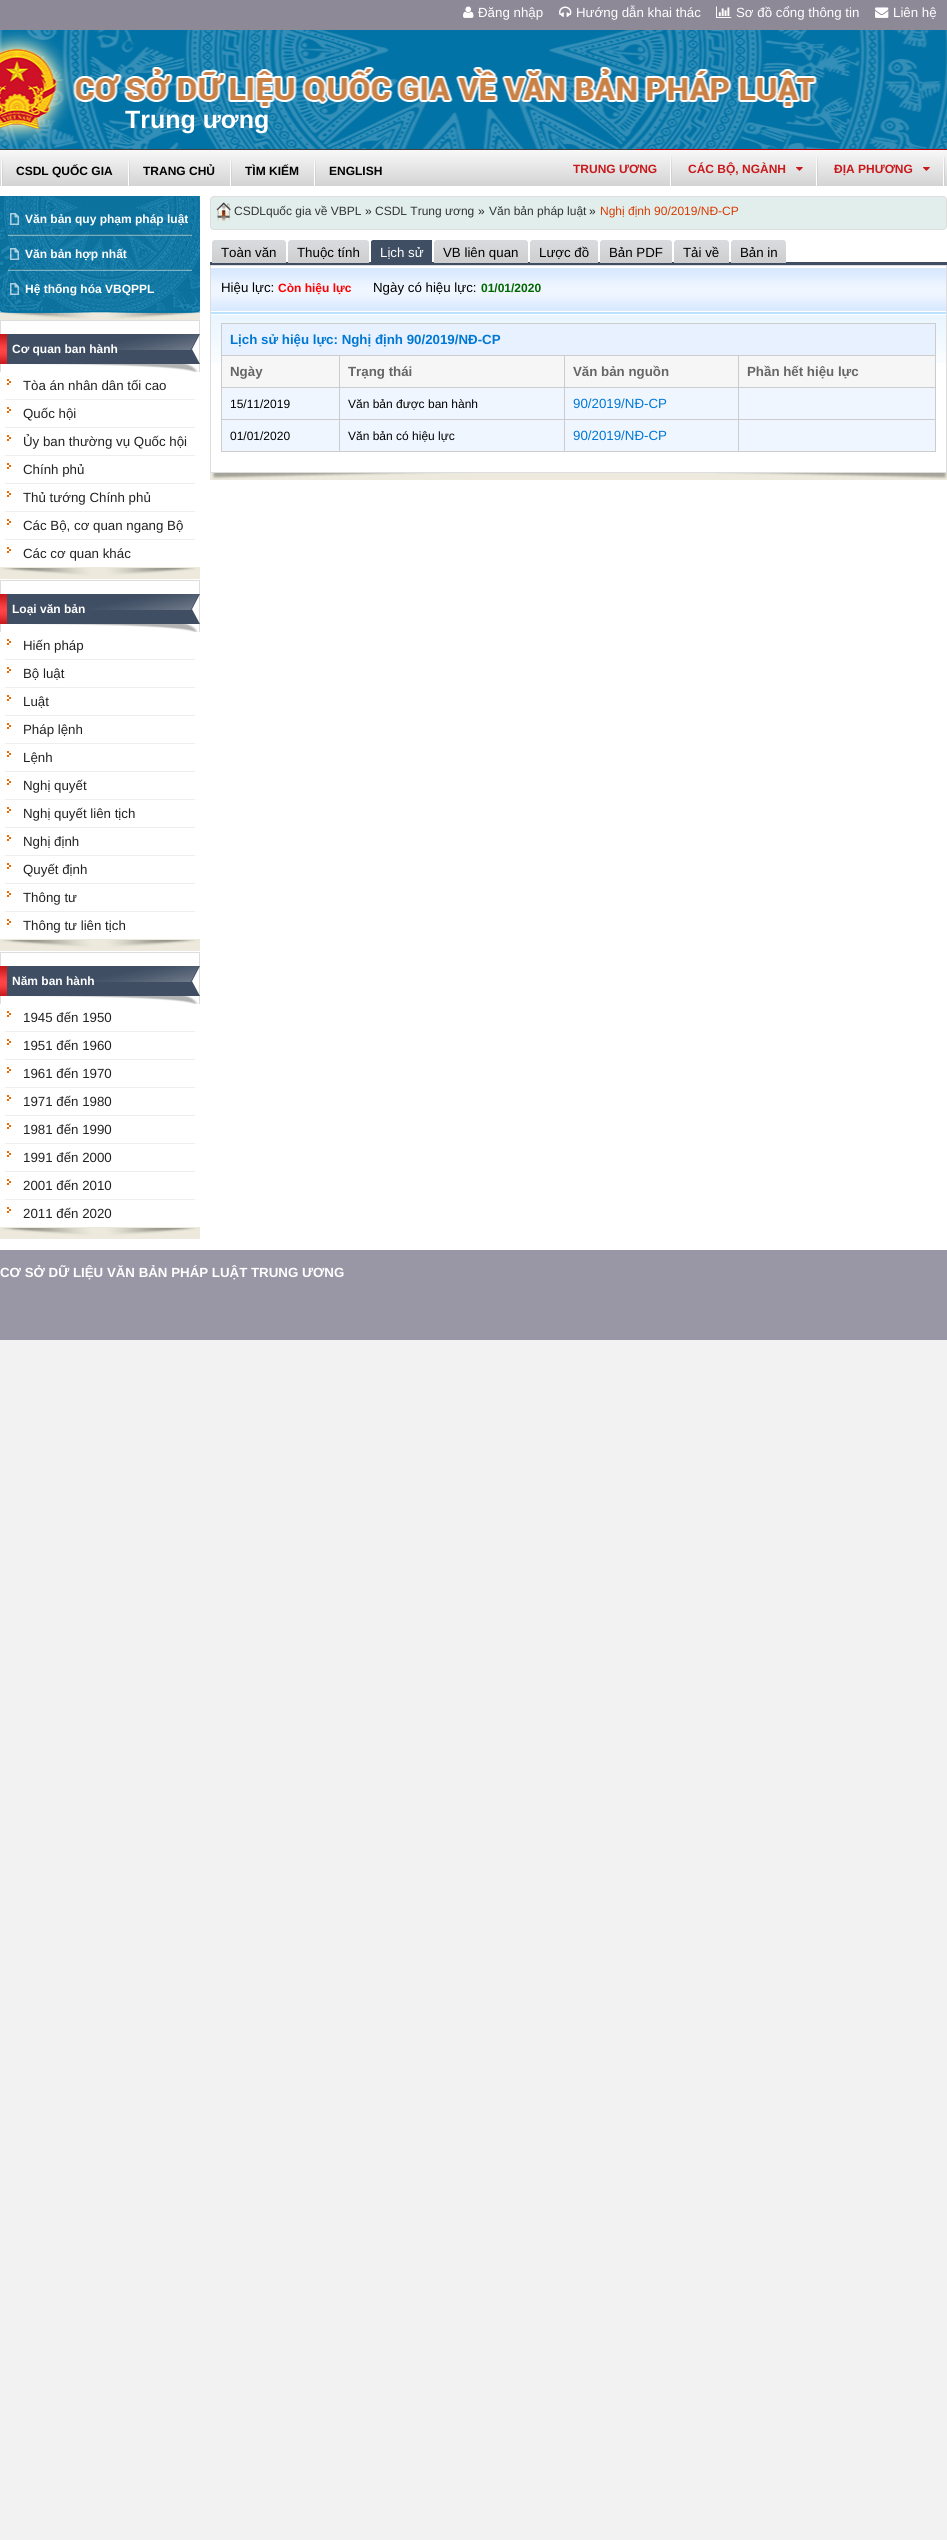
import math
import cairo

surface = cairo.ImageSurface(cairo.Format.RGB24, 947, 2540)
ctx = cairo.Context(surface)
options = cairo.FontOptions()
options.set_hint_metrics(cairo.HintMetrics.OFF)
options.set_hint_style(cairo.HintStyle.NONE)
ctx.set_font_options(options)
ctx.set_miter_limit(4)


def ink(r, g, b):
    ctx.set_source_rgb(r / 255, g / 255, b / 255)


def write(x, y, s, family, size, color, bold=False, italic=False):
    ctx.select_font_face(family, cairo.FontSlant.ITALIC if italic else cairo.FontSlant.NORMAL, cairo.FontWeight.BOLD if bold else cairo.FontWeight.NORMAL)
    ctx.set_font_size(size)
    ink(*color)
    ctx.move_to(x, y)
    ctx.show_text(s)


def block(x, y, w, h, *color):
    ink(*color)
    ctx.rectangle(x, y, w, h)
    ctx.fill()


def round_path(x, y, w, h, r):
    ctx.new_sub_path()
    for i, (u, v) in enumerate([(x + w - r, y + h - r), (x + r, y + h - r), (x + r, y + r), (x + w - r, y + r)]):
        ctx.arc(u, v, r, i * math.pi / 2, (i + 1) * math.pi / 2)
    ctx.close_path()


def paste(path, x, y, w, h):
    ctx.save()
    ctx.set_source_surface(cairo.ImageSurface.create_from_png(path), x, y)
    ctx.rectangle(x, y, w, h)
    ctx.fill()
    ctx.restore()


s1 = dict(family="Liberation Sans", size=13.3, color=(255, 255, 255))
s2 = dict(family="Liberation Sans", size=25, color=(255, 255, 255), bold=True)
s3 = dict(family="Liberation Sans", size=12, color=(0, 0, 0), bold=True)
s4 = dict(family="Liberation Sans", size=12, color=(200, 26, 29), bold=True)
s5 = dict(family="Liberation Sans", size=12, color=(255, 255, 255), bold=True)
s6 = dict(family="Liberation Sans", size=13.3, color=(34, 34, 34))
s7 = dict(family="Liberation Sans", size=12, color=(51, 51, 51))
s8 = dict(family="Liberation Sans", size=12, color=(34, 34, 34))
s9 = dict(family="Liberation Sans", size=12, color=(217, 59, 2))
s10 = dict(family="Liberation Sans", size=13.3, color=(0, 0, 0))
s11 = dict(family="Liberation Sans", size=12, color=(255, 0, 0), bold=True)
s12 = dict(family="Liberation Sans", size=12, color=(0, 102, 0), bold=True)
s13 = dict(family="Liberation Sans", size=13.3, color=(0, 119, 211), bold=True)
s14 = dict(family="Liberation Sans", size=13.3, color=(102, 102, 102), bold=True)
s15 = dict(family="Liberation Sans", size=12, color=(0, 0, 0))
s16 = dict(family="Liberation Sans", size=13.3, color=(0, 119, 211))
s17 = dict(family="Liberation Sans", size=13.3, color=(255, 255, 255), bold=True)

ink(242, 242, 242)
ctx.paint()
block(0, 0, 947, 30, 142, 137, 151)
paste("pic1.png", 463, 6, 11, 12)
write(478, 17, "Đăng nhập", **s1)
paste("pic2.png", 559, 6, 13, 11)
write(576, 17, "Hướng dẫn khai thác", **s1)
paste("pic3.png", 716, 6, 16, 12)
write(736, 17, "Sơ đồ cổng thông tin", **s1)
paste("pic4.png", 875, 7, 14, 11)
write(893, 17, "Liên hệ", **s1)
paste("pic5.png", 0, 30, 947, 120)
paste("pic6.png", 0, 30, 817, 116)
write(125, 128, "Trung ương", **s2)
paste("pic7.png", 0, 150, 947, 36)
paste("pic8.png", 1, 159, 2, 27)
write(16, 175, "CSDL QUỐC GIA", **s3)
paste("pic8.png", 128, 159, 2, 27)
write(143, 175, "TRANG CHỦ", **s3)
paste("pic8.png", 230, 159, 2, 27)
write(245, 175, "TÌM KIẾM", **s3)
paste("pic8.png", 314, 159, 2, 27)
write(329, 175, "ENGLISH", **s3)
paste("pic9.png", 670, 157, 2, 29)
write(573, 173, "TRUNG ƯƠNG", **s4)
paste("pic9.png", 816, 157, 2, 29)
write(688, 173, "CÁC BỘ, NGÀNH", **s4)
paste("pic10.png", 796, 167, 7, 4)
paste("pic9.png", 943, 157, 2, 29)
write(834, 173, "ĐỊA PHƯƠNG", **s4)
paste("pic10.png", 923, 167, 7, 4)
block(0, 186, 947, 1064, 255, 255, 255)
block(0, 196, 200, 115, 1, 115, 166)
paste("pic11.png", 0, 311, 200, 9)
paste("pic12.png", 0, 196, 200, 115)
paste("pic13.png", 8, 234, 184, 2)
paste("pic14.png", 10, 213, 9, 12)
write(25, 223, "Văn bản quy phạm pháp luật", **s5)
paste("pic15.png", 8, 269, 184, 2)
paste("pic16.png", 10, 248, 9, 12)
write(25, 258, "Văn bản hợp nhất", **s5)
paste("pic17.png", 10, 283, 9, 12)
write(25, 293, "Hệ thống hóa VBQPPL", **s5)
paste("pic18.png", 0, 320, 200, 52)
paste("pic19.png", 90, 321, 110, 51)
write(12, 353, "Cơ quan ban hành", **s5)
paste("pic20.png", 7, 379, 4, 6)
block(5, 399, 190, 1, 238, 238, 238)
write(23, 390, "Tòa án nhân dân tối cao", **s6)
paste("pic20.png", 7, 407, 4, 6)
block(5, 427, 190, 1, 238, 238, 238)
write(23, 418, "Quốc hội", **s6)
paste("pic20.png", 7, 435, 4, 6)
block(5, 455, 190, 1, 238, 238, 238)
write(23, 446, "Ủy ban thường vụ Quốc hội", **s6)
paste("pic20.png", 7, 463, 4, 6)
block(5, 483, 190, 1, 238, 238, 238)
write(23, 474, "Chính phủ", **s6)
paste("pic20.png", 7, 491, 4, 6)
block(5, 511, 190, 1, 238, 238, 238)
write(23, 502, "Thủ tướng Chính phủ", **s6)
paste("pic20.png", 7, 519, 4, 6)
block(5, 539, 190, 1, 238, 238, 238)
write(23, 530, "Các Bộ, cơ quan ngang Bộ", **s6)
paste("pic20.png", 7, 547, 4, 6)
write(23, 558, "Các cơ quan khác", **s6)
paste("pic21.png", 0, 567, 200, 12)
paste("pic22.png", 12, 568, 186, 4)
paste("pic18.png", 0, 580, 200, 52)
paste("pic19.png", 90, 581, 110, 51)
write(12, 613, "Loại văn bản", **s5)
paste("pic20.png", 7, 639, 4, 6)
block(5, 659, 190, 1, 238, 238, 238)
write(23, 650, "Hiến pháp", **s6)
paste("pic20.png", 7, 667, 4, 6)
block(5, 687, 190, 1, 238, 238, 238)
write(23, 678, "Bộ luật", **s6)
paste("pic20.png", 7, 695, 4, 6)
block(5, 715, 190, 1, 238, 238, 238)
write(23, 706, "Luật", **s6)
paste("pic20.png", 7, 723, 4, 6)
block(5, 743, 190, 1, 238, 238, 238)
write(23, 734, "Pháp lệnh", **s6)
paste("pic20.png", 7, 751, 4, 6)
block(5, 771, 190, 1, 238, 238, 238)
write(23, 762, "Lệnh", **s6)
paste("pic20.png", 7, 779, 4, 6)
block(5, 799, 190, 1, 238, 238, 238)
write(23, 790, "Nghị quyết", **s6)
paste("pic20.png", 7, 807, 4, 6)
block(5, 827, 190, 1, 238, 238, 238)
write(23, 818, "Nghị quyết liên tịch", **s6)
paste("pic20.png", 7, 835, 4, 6)
block(5, 855, 190, 1, 238, 238, 238)
write(23, 846, "Nghị định", **s6)
paste("pic20.png", 7, 863, 4, 6)
block(5, 883, 190, 1, 238, 238, 238)
write(23, 874, "Quyết định", **s6)
paste("pic20.png", 7, 891, 4, 6)
block(5, 911, 190, 1, 238, 238, 238)
write(23, 902, "Thông tư", **s6)
paste("pic20.png", 7, 919, 4, 6)
write(23, 930, "Thông tư liên tịch", **s6)
paste("pic21.png", 0, 939, 200, 12)
paste("pic22.png", 12, 940, 186, 4)
paste("pic18.png", 0, 952, 200, 52)
paste("pic19.png", 90, 953, 110, 51)
write(12, 985, "Năm ban hành", **s5)
paste("pic20.png", 7, 1011, 4, 6)
block(5, 1031, 190, 1, 238, 238, 238)
write(23, 1022, "1945 đến 1950", **s6)
paste("pic20.png", 7, 1039, 4, 6)
block(5, 1059, 190, 1, 238, 238, 238)
write(23, 1050, "1951 đến 1960", **s6)
paste("pic20.png", 7, 1067, 4, 6)
block(5, 1087, 190, 1, 238, 238, 238)
write(23, 1078, "1961 đến 1970", **s6)
paste("pic20.png", 7, 1095, 4, 6)
block(5, 1115, 190, 1, 238, 238, 238)
write(23, 1106, "1971 đến 1980", **s6)
paste("pic20.png", 7, 1123, 4, 6)
block(5, 1143, 190, 1, 238, 238, 238)
write(23, 1134, "1981 đến 1990", **s6)
paste("pic20.png", 7, 1151, 4, 6)
block(5, 1171, 190, 1, 238, 238, 238)
write(23, 1162, "1991 đến 2000", **s6)
paste("pic20.png", 7, 1179, 4, 6)
block(5, 1199, 190, 1, 238, 238, 238)
write(23, 1190, "2001 đến 2010", **s6)
paste("pic20.png", 7, 1207, 4, 6)
write(23, 1218, "2011 đến 2020", **s6)
paste("pic21.png", 0, 1227, 200, 12)
paste("pic22.png", 12, 1228, 186, 4)
ink(225, 238, 235)
round_path(210.5, 196.5, 736, 33, 3.5)
ctx.fill_preserve()
ink(221, 221, 221)
ctx.set_line_width(1)
ctx.stroke()
paste("pic23.png", 216, 202, 15, 19)
write(234, 215, "CSDLquốc gia về VBPL", **s7)
write(365, 215, "»", **s8)
write(375, 215, "CSDL Trung ương", **s7)
write(478, 215, "»", **s8)
write(489, 215, "Văn bản pháp luật", **s7)
write(589, 215, "»", **s8)
write(600, 215, "Nghị định 90/2019/NĐ-CP", **s9)
block(210, 262, 737, 3, 63, 78, 99)
paste("pic24.png", 212, 240, 74, 23)
paste("pic25.png", 212, 240, 2, 2)
write(221, 257, "Toàn văn", **s10)
paste("pic26.png", 288, 240, 81, 23)
paste("pic27.png", 288, 240, 2, 2)
write(297, 257, "Thuộc tính", **s10)
block(371, 240, 61, 22, 63, 78, 99)
paste("pic28.png", 371, 240, 2, 2)
write(380, 257, "Lịch sử", **s1)
paste("pic29.png", 434, 240, 94, 23)
paste("pic25.png", 434, 240, 2, 2)
write(443, 257, "VB liên quan", **s10)
paste("pic30.png", 530, 240, 68, 23)
paste("pic27.png", 530, 240, 2, 2)
write(539, 257, "Lược đồ", **s10)
paste("pic31.png", 600, 240, 72, 23)
paste("pic27.png", 600, 240, 2, 2)
write(609, 257, "Bản PDF", **s10)
paste("pic32.png", 674, 240, 55, 23)
paste("pic25.png", 674, 240, 2, 2)
write(683, 257, "Tải về", **s10)
paste("pic33.png", 731, 240, 55, 23)
paste("pic27.png", 731, 240, 2, 2)
write(740, 257, "Bản in", **s10)
paste("pic34.png", 211, 268, 735, 95)
ctx.rectangle(210.5, 265.5, 736, 207)
ink(221, 221, 221)
ctx.stroke()
write(221, 292, "Hiệu lực:", **s10)
write(278, 292, "Còn hiệu lực", **s11)
write(373, 292, "Ngày có hiệu lực:", **s10)
write(481, 292, "01/01/2020", **s12)
block(221, 323, 715, 129, 204, 204, 204)
block(222, 324, 713, 31, 231, 241, 255)
write(230, 344, "Lịch sử hiệu lực: Nghị định 90/2019/NĐ-CP", **s13)
block(222, 356, 117, 31, 246, 246, 246)
write(230, 376, "Ngày", **s14)
block(340, 356, 224, 31, 246, 246, 246)
write(348, 376, "Trạng thái", **s14)
block(565, 356, 173, 31, 246, 246, 246)
write(573, 376, "Văn bản nguồn", **s14)
block(739, 356, 196, 31, 246, 246, 246)
write(747, 376, "Phần hết hiệu lực", **s14)
block(222, 388, 117, 31, 240, 246, 255)
write(230, 408, "15/11/2019", **s15)
block(340, 388, 224, 31, 240, 246, 255)
write(348, 408, "Văn bản được ban hành", **s15)
block(565, 388, 173, 31, 240, 246, 255)
write(573, 408, "90/2019/NĐ-CP", **s16)
block(739, 388, 196, 31, 240, 246, 255)
block(222, 420, 117, 31, 240, 246, 255)
write(230, 440, "01/01/2020", **s15)
block(340, 420, 224, 31, 240, 246, 255)
write(348, 440, "Văn bản có hiệu lực", **s15)
block(565, 420, 173, 31, 240, 246, 255)
write(573, 440, "90/2019/NĐ-CP", **s16)
block(739, 420, 196, 31, 240, 246, 255)
paste("pic35.png", 210, 473, 737, 7)
paste("pic36.png", 716, 473, 231, 6)
block(0, 1250, 947, 90, 153, 150, 166)
write(0, 1277, "CƠ SỞ DỮ LIỆU VĂN BẢN PHÁP LUẬT TRUNG ƯƠNG", **s17)
surface.write_to_png("screenshot.png")
